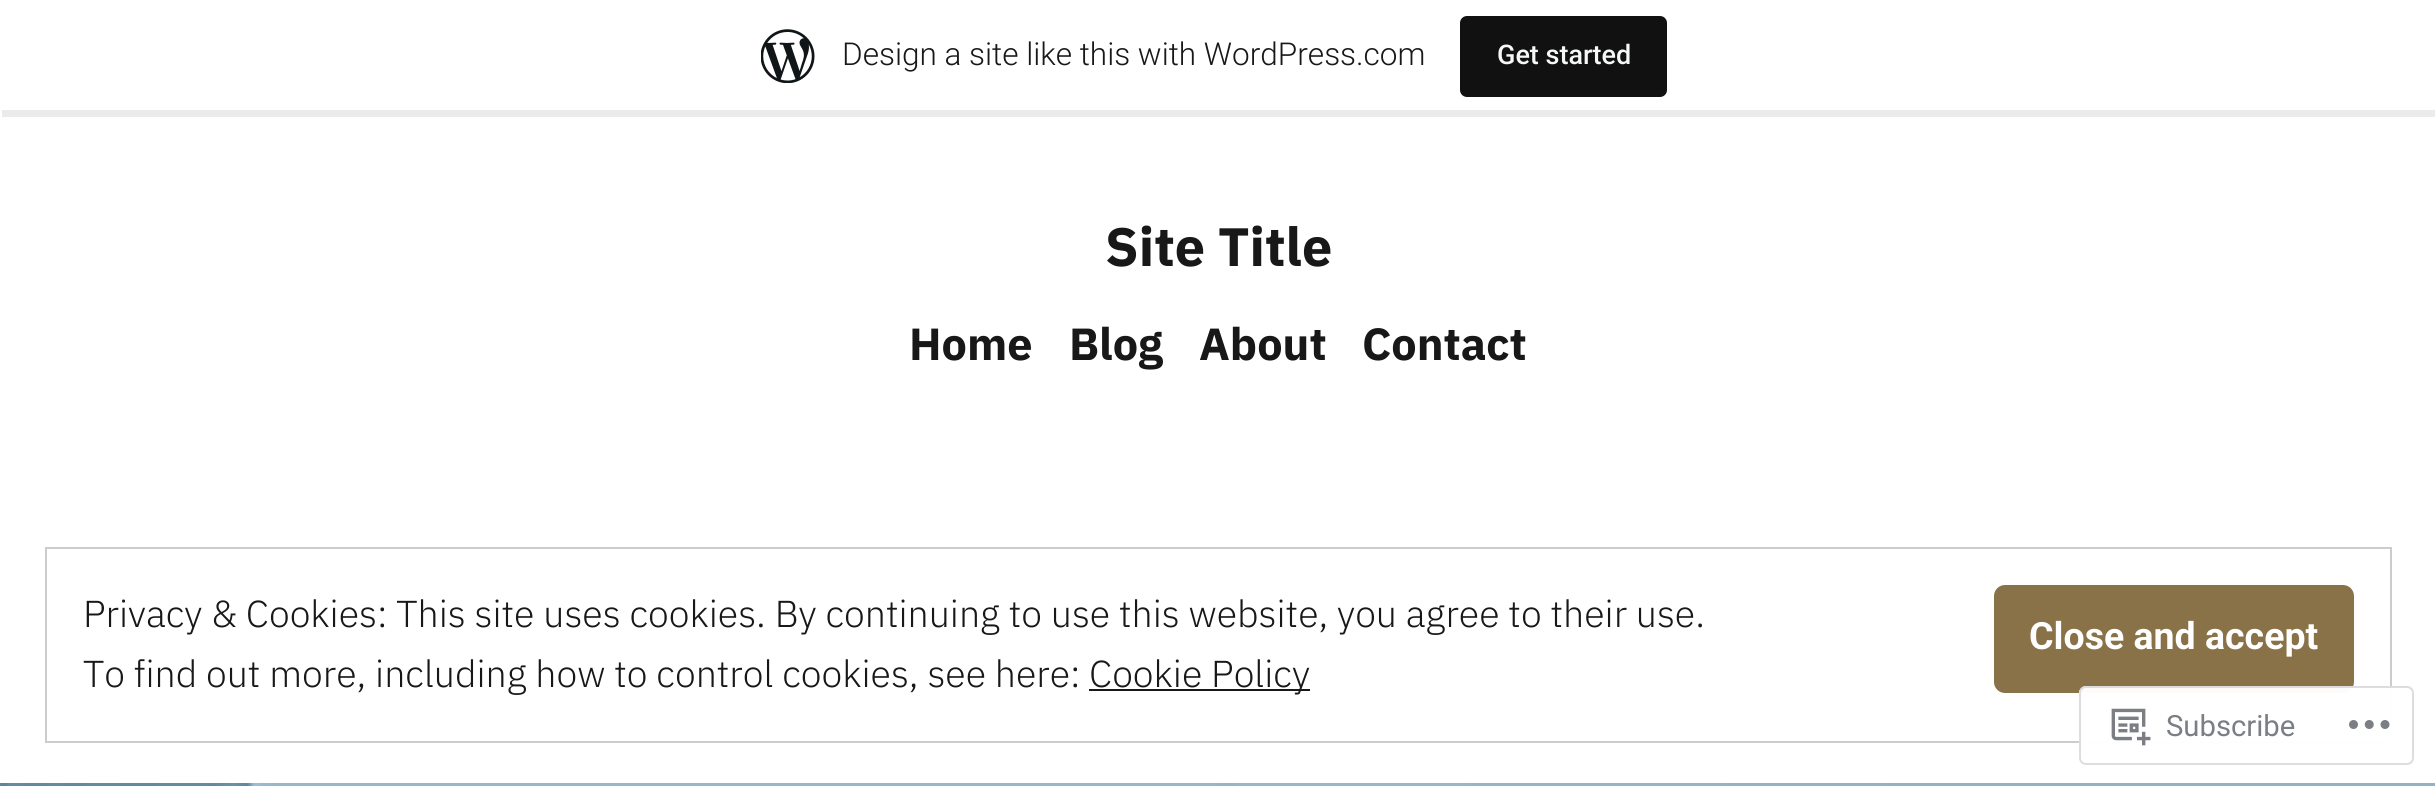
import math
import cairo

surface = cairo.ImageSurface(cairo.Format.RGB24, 2435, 786)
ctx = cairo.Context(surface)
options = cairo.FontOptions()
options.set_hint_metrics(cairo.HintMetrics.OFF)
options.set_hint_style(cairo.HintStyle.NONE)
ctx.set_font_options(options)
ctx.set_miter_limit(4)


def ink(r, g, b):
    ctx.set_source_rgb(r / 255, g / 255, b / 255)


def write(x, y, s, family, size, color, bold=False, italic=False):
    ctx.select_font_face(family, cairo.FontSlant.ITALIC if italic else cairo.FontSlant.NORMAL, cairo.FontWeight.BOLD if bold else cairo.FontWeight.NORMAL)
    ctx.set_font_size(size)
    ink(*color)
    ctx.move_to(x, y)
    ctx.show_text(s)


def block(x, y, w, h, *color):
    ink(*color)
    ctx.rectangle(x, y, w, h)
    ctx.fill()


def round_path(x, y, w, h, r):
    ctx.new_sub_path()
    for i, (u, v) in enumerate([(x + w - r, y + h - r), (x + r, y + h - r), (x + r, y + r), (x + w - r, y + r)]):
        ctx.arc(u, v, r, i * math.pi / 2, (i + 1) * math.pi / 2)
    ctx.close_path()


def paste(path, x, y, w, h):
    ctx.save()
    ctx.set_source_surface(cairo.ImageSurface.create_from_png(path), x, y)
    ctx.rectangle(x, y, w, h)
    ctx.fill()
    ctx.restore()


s1 = dict(family="Roboto Light", size=31.5, color=(24, 24, 24))
s2 = dict(family="Roboto Medium", size=27, color=(246, 247, 247))
s3 = dict(family="IBM Plex Sans", size=54, color=(24, 24, 24), bold=True)
s4 = dict(family="IBM Plex Sans", size=45, color=(24, 24, 24), bold=True)
s5 = dict(family="IBM Plex Sans Light", size=37.5, color=(24, 24, 24))
s6 = dict(family="Roboto", size=37.5, color=(255, 255, 255), bold=True)
s7 = dict(family="Roboto", size=29.25, color=(123, 127, 133))

ink(255, 255, 255)
ctx.paint()
ctx.set_source_rgba(0, 0, 0, 0.08)
ctx.new_path()
ctx.move_to(2, 110)
ctx.line_to(2, 117)
ctx.line_to(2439, 117)
ctx.line_to(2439, 7)
ctx.line_to(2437, 7)
ctx.line_to(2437, 110)
ctx.close_path()
ctx.fill()
paste("pic1.png", 761, 29, 54, 54)
write(842, 65, "Design a site like this with WordPress.com", **s1)
ink(17, 17, 17)
round_path(1460, 16, 207, 81, 7)
ctx.fill()
write(1497, 64, "Get started", **s2)
write(1105, 266, "Site Title", **s3)
write(909, 360, "Home", **s4)
write(1069, 360, "Blog", **s4)
write(1199, 360, "About", **s4)
write(1362, 360, "Contact", **s4)
paste("pic2.png", 0, 783, 2435, 3)
ctx.rectangle(46, 548, 2345, 194)
ink(204, 204, 204)
ctx.stroke()
write(83, 627, "Privacy & Cookies: This site uses cookies. By continuing to use this website, you agree to their use.", **s5)
ink(137, 114, 72)
round_path(1994, 585, 360, 108, 11)
ctx.fill()
write(2029, 649, "Close and accept", **s6)
write(83, 687, "To find out more, including how to control cookies, see here:", **s5)
block(1089, 689, 221, 2, 24, 24, 24)
write(1089, 687, "Cookie Policy", **s5)
ctx.set_source_rgba(1, 1, 1, 0.98)
round_path(2079, 686, 335, 79, 7)
ctx.fill()
round_path(2080, 687, 333, 77, 6)
ctx.set_source_rgba(0.863, 0.863, 0.871, 0.98)
ctx.stroke()
paste("pic3.png", 2111, 708, 40, 38)
write(2166, 736, "Subscribe", **s7)
paste("pic4.png", 2349, 720, 41, 9)
surface.write_to_png("screenshot.png")
